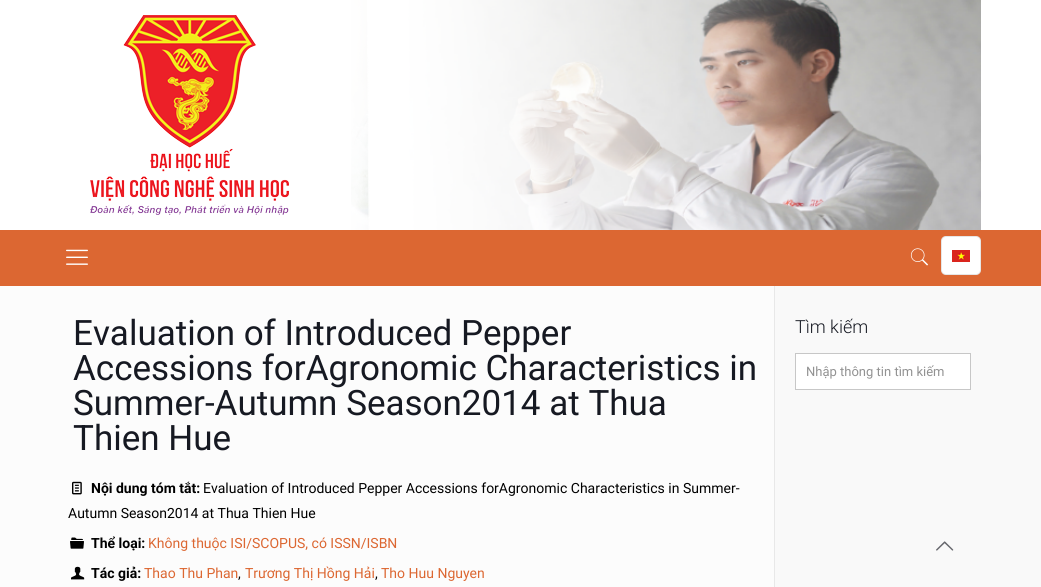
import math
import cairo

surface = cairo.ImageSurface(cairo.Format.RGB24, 1041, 587)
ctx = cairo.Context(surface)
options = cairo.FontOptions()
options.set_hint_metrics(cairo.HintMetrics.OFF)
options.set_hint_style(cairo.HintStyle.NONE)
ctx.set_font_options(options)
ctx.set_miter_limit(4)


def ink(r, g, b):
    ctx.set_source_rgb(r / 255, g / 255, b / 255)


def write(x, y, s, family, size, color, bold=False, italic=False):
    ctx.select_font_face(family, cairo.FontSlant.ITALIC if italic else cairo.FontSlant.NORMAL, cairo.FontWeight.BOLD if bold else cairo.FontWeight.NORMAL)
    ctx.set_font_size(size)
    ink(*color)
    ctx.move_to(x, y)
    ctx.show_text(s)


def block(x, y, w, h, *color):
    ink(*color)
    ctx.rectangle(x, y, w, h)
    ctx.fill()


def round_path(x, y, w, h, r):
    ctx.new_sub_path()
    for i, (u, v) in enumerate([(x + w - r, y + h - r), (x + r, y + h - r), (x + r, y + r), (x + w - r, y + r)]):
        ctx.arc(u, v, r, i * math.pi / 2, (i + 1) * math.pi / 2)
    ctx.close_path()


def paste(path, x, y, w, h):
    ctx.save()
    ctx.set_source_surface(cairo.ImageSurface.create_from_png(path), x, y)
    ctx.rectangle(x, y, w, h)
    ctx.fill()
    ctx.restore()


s1 = dict(family="Roboto", size=35, color=(22, 25, 34))
s2 = dict(family="Roboto", size=14, color=(0, 0, 0), bold=True)
s3 = dict(family="Roboto", size=14, color=(0, 0, 0))
s4 = dict(family="Roboto", size=14, color=(220, 103, 50))
s5 = dict(family="Roboto Light", size=18, color=(22, 25, 34))
s6 = dict(family="Roboto", size=13, color=(146, 146, 146))

ink(252, 252, 252)
ctx.paint()
block(0, 0, 1041, 230, 255, 255, 255)
paste("pic1.png", 351, 0, 630, 230)
paste("pic2.png", 90, 15, 199, 200)
block(0, 230, 1041, 56, 220, 103, 50)
paste("pic3.png", 66, 249, 22, 16)
paste("pic4.png", 910, 248, 19, 18)
ink(255, 255, 255)
round_path(941, 236, 40, 39, 5)
ctx.fill()
round_path(941.5, 236.5, 39, 38, 4.5)
ctx.set_source_rgba(0, 0, 0, 0.1)
ctx.set_line_width(1)
ctx.stroke()
paste("pic5.png", 952, 250, 18, 12)
write(73, 345, "Evaluation of Introduced Pepper", **s1)
write(73, 380, "Accessions forAgronomic Characteristics in", **s1)
write(73, 415, "Summer-Autumn Season2014 at Thua", **s1)
write(73, 450, "Thien Hue", **s1)
paste("pic6.png", 72, 481, 10, 14)
write(91, 493, "Nội dung tóm tắt:", **s2)
write(203, 493, "Evaluation of Introduced Pepper Accessions forAgronomic Characteristics in Summer-", **s3)
write(68, 518, "Autumn Season2014 at Thua Thien Hue", **s3)
paste("pic7.png", 70, 537, 14, 12)
write(91, 548, "Thể loại:", **s2)
write(148, 548, "Không thuộc ISI/SCOPUS, có ISSN/ISBN", **s4)
paste("pic8.png", 71, 566, 14, 14)
write(91, 578, "Tác giả:", **s2)
write(144, 578, "Thao Thu Phan", **s4)
write(238, 578, ",", **s3)
write(245, 578, "Trương Thị Hồng Hải", **s4)
write(375, 578, ",", **s3)
write(381, 578, "Tho Huu Nguyen", **s4)
block(774, 286, 1, 301, 232, 232, 232)
block(775, 286, 266, 301, 249, 249, 249)
write(795, 333, "Tìm kiếm", **s5)
ink(255, 255, 255)
ctx.rectangle(795.5, 353.5, 175, 36)
ctx.fill_preserve()
ink(199, 199, 199)
ctx.stroke()
write(806, 376, "Nhập thông tin tìm kiếm", **s6)
paste("pic9.png", 936, 541, 18, 10)
surface.write_to_png("screenshot.png")
